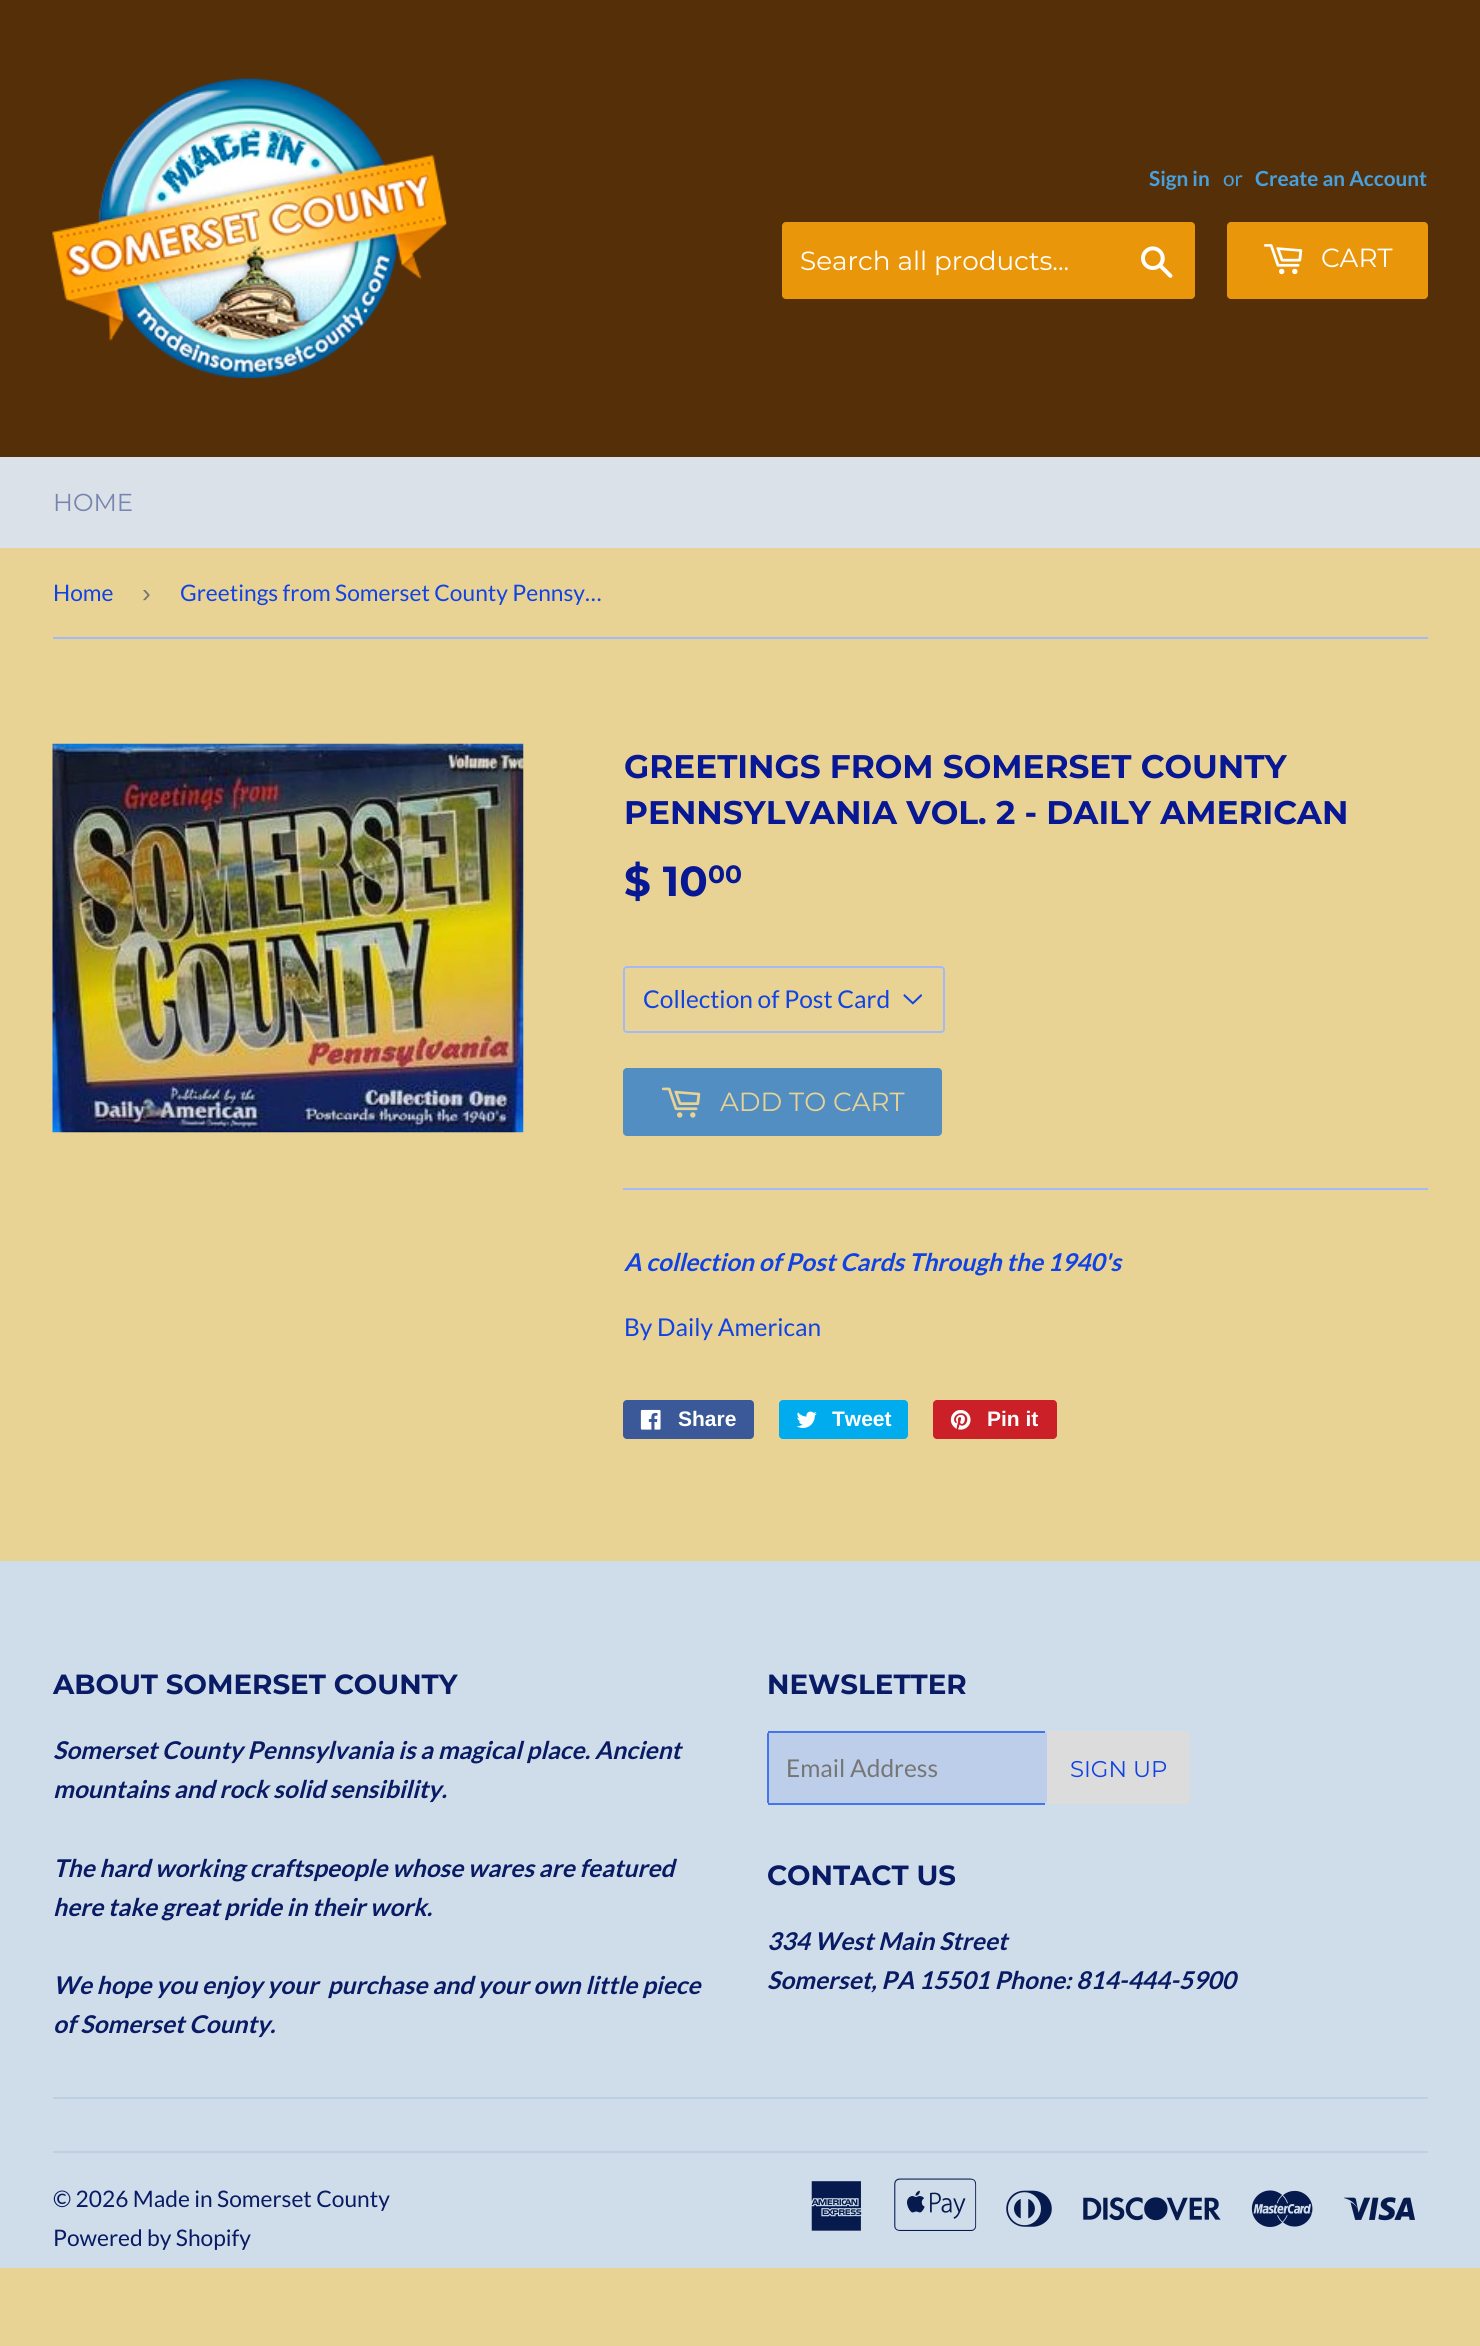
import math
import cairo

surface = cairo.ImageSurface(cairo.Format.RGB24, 1480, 2346)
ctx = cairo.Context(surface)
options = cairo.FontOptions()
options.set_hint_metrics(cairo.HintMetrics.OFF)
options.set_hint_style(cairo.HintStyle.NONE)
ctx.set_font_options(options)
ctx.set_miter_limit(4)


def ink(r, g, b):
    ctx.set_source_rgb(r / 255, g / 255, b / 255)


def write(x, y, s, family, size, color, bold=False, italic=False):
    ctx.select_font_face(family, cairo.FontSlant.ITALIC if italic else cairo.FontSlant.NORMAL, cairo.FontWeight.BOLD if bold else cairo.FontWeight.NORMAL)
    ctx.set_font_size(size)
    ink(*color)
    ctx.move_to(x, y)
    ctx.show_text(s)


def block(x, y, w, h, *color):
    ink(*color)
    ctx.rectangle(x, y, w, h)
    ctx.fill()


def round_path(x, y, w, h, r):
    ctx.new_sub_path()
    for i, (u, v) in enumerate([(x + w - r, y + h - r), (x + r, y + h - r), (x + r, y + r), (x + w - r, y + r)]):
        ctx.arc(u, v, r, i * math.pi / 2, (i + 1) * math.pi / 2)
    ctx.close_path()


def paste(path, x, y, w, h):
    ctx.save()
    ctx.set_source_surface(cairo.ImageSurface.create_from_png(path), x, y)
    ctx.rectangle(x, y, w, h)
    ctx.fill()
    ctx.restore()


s1 = dict(family="Lato", size=20.75, color=(71, 161, 222), bold=True)
s2 = dict(family="Lato", size=20.75, color=(71, 161, 222))
s3 = dict(family="Montserrat", size=26.25, color=(255, 255, 255))
s4 = dict(family="Montserrat", size=24.5, color=(120, 133, 175))
s5 = dict(family="Lato", size=22.75, color=(17, 67, 228))
s6 = dict(family="Liberation Sans", size=26.25, color=(118, 118, 118))
s7 = dict(family="Montserrat", size=32.7, color=(8, 24, 148), bold=True)
s8 = dict(family="Montserrat", size=42, color=(8, 24, 148), bold=True)
s9 = dict(family="Montserrat", size=25, color=(8, 24, 148), bold=True)
s10 = dict(family="Lato", size=24.5, color=(17, 67, 228))
s11 = dict(family="Montserrat", size=26.25, color=(232, 211, 149))
s12 = dict(family="Lato", size=24.5, color=(17, 67, 228), bold=True, italic=True)
s13 = dict(family="Liberation Sans", size=21, color=(255, 255, 255), bold=True)
s14 = dict(family="Montserrat", size=27.75, color=(9, 27, 100), bold=True)
s15 = dict(family="Lato", size=24.5, color=(9, 27, 100), bold=True, italic=True)
s16 = dict(family="Lato", size=24.5, color=(118, 118, 118))
s17 = dict(family="Montserrat", size=22.75, color=(17, 67, 228))
s18 = dict(family="Lato", size=22.75, color=(9, 27, 100))

ink(232, 211, 149)
ctx.paint()
block(0, 0, 1480, 457, 85, 47, 8)
paste("pic1.png", 52, 78, 395, 300)
write(1149, 186, "Sign in", **s1)
write(1223, 186, "or", **s2)
write(1255, 186, "Create an Account", **s1)
ink(234, 150, 10)
round_path(782, 222, 413, 77, 4)
ctx.fill()
write(800, 270, "Search all products...", **s3)
paste("pic2.png", 1141, 246, 32, 32)
ink(234, 150, 10)
round_path(1227, 222, 201, 77, 4)
ctx.fill()
paste("pic3.png", 1263, 244, 40, 31)
write(1321, 267, "CART", **s3)
block(0, 457, 1480, 91, 219, 225, 232)
write(53, 511, "HOME", **s4)
block(53, 637, 1375, 2, 163, 186, 246)
write(53, 601, "Home", **s5)
write(142, 602, "›", **s6)
write(180, 601, "Greetings from Somerset County Pennsy…", **s5)
paste("pic4.png", 52, 743, 472, 390)
write(624, 778, "GREETINGS FROM SOMERSET COUNTY", **s7)
write(624, 824, "PENNSYLVANIA VOL. 2 - DAILY AMERICAN", **s7)
write(624, 896, "$ 10", **s8)
write(708, 883, "00", **s9)
paste("pic5.png", 903, 994, 19, 11)
round_path(624, 967, 320, 65, 3)
ink(163, 186, 246)
ctx.stroke()
write(643, 1008, "Collection of Post Card", **s10)
ink(82, 142, 193)
round_path(623, 1068, 319, 68, 4)
ctx.fill()
paste("pic6.png", 661, 1087, 40, 31)
write(720, 1111, "ADD TO CART", **s11)
block(623, 1188, 805, 2, 163, 186, 246)
write(624, 1271, "A collection of Post Cards Through the 1940's", **s12)
write(624, 1336, "By Daily American", **s10)
ink(59, 89, 152)
round_path(623, 1400, 131, 39, 4)
ctx.fill()
paste("pic7.png", 640, 1409, 21, 21)
write(678, 1426, "Share", **s13)
ink(0, 172, 237)
round_path(779, 1400, 129, 39, 4)
ctx.fill()
paste("pic8.png", 796, 1411, 21, 17)
write(832, 1426, "Tweet", **s13)
ink(203, 32, 39)
round_path(933, 1400, 124, 39, 4)
ctx.fill()
paste("pic9.png", 950, 1410, 21, 20)
write(987, 1426, "Pin it", **s13)
block(0, 1561, 1480, 707, 207, 221, 234)
write(53, 1694, "ABOUT SOMERSET COUNTY", **s14)
write(53, 1759, "Somerset County Pennsylvania is a magical place. Ancient", **s15)
write(53, 1798, "mountains and rock solid sensibility.", **s15)
write(53, 1877, "The hard working craftspeople whose wares are featured", **s15)
write(53, 1916, "here take great pride in their work.", **s15)
write(53, 1994, "We hope you enjoy your  purchase and your own little piece", **s15)
write(53, 2033, "of Somerset County.", **s15)
write(767, 1694, "NEWSLETTER", **s14)
ink(188, 206, 233)
round_path(767, 1731, 280, 73, 4)
ctx.fill()
block(768, 1731, 277, 2, 70, 116, 237)
block(768, 1803, 277, 2, 70, 116, 237)
block(767, 1733, 2, 70, 70, 116, 237)
write(786, 1777, "Email Address", **s16)
ink(220, 220, 220)
ctx.new_path()
ctx.move_to(1047, 1731)
ctx.line_to(1186, 1731)
ctx.curve_to(1188, 1731, 1190, 1733, 1190, 1735)
ctx.line_to(1190, 1800)
ctx.curve_to(1190, 1802, 1188, 1804, 1186, 1804)
ctx.line_to(1047, 1804)
ctx.close_path()
ctx.fill()
write(1070, 1777, "SIGN UP", **s17)
write(767, 1885, "CONTACT US", **s14)
write(767, 1950, "334 West Main Street", **s15)
write(767, 1989, "Somerset, PA 15501 Phone: 814-444-5900", **s15)
block(53, 2097, 1375, 2, 189, 208, 226)
block(53, 2151, 1375, 2, 189, 208, 226)
write(53, 2207, "© 2026 Made in Somerset County", **s18)
write(53, 2246, "Powered by Shopify", **s18)
paste("pic10.png", 811, 2181, 51, 50)
paste("pic11.png", 894, 2178, 83, 53)
paste("pic12.png", 1006, 2190, 46, 37)
paste("pic13.png", 1083, 2197, 138, 24)
paste("pic14.png", 1251, 2190, 62, 37)
paste("pic15.png", 1344, 2197, 71, 24)
surface.write_to_png("screenshot.png")
